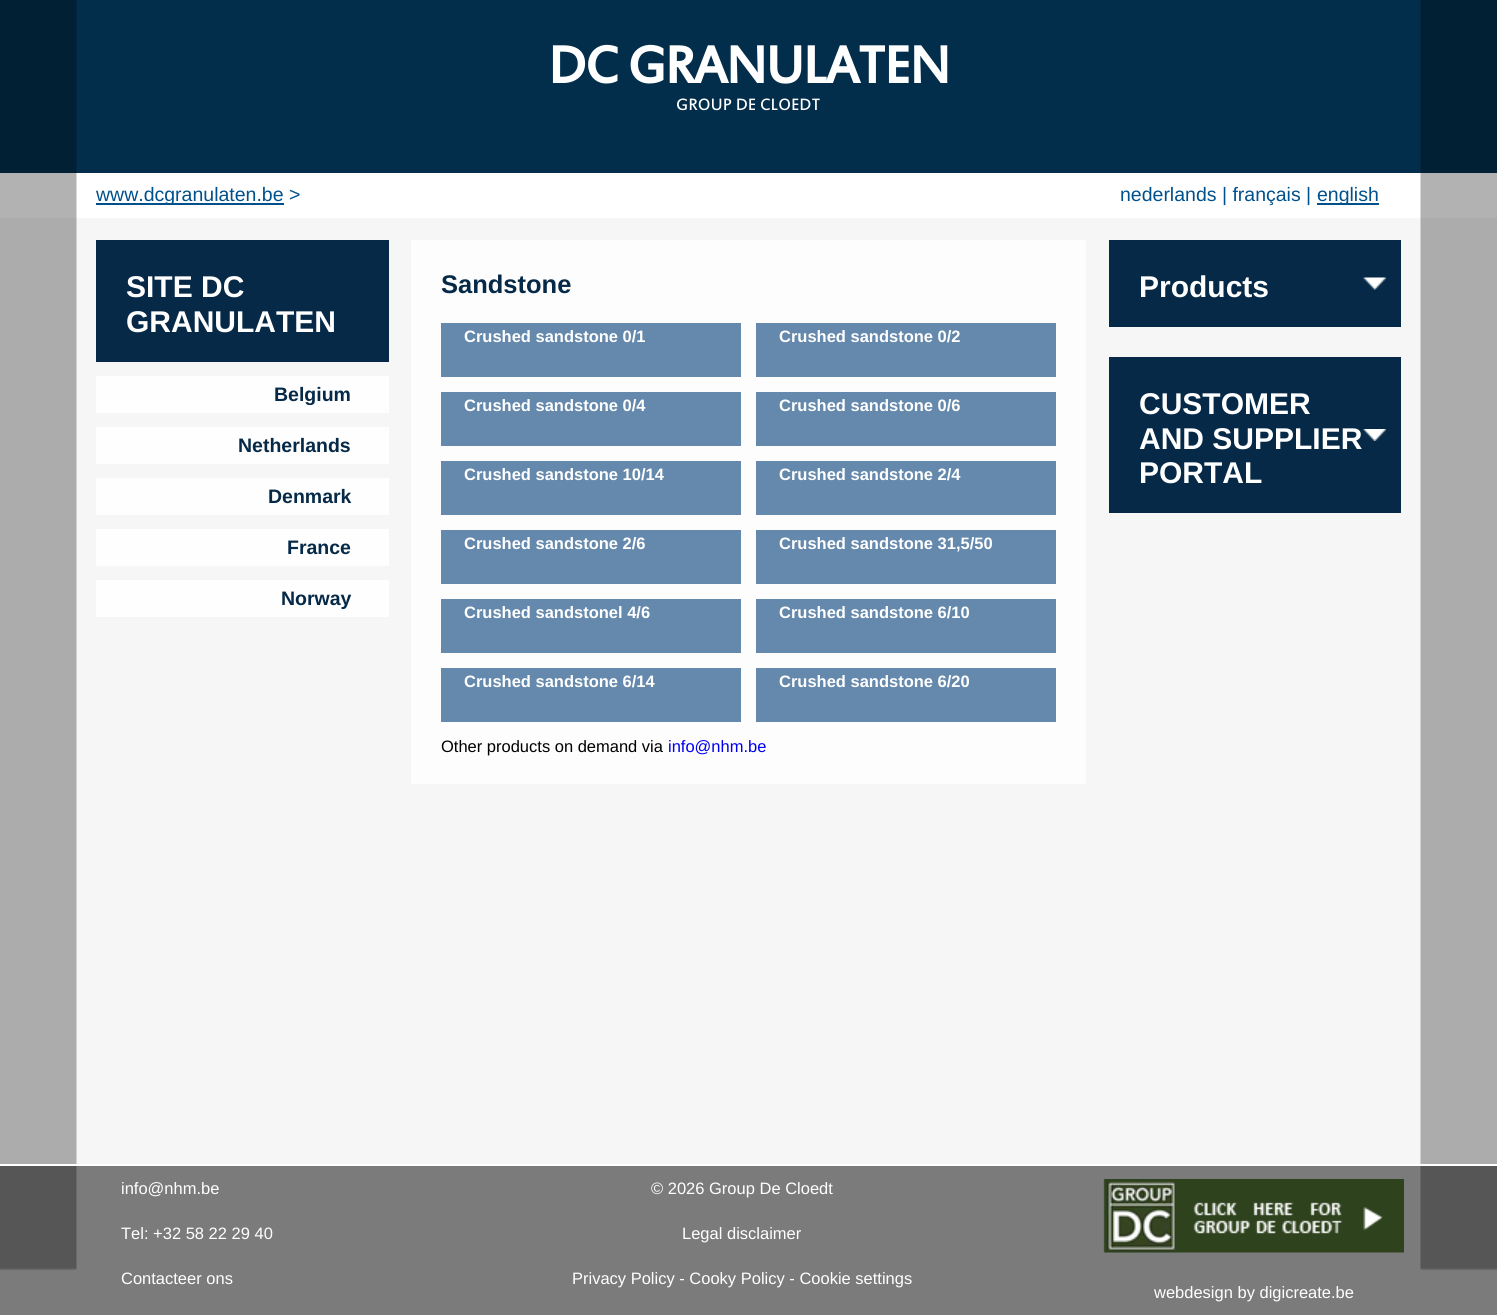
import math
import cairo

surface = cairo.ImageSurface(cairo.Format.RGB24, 1497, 1315)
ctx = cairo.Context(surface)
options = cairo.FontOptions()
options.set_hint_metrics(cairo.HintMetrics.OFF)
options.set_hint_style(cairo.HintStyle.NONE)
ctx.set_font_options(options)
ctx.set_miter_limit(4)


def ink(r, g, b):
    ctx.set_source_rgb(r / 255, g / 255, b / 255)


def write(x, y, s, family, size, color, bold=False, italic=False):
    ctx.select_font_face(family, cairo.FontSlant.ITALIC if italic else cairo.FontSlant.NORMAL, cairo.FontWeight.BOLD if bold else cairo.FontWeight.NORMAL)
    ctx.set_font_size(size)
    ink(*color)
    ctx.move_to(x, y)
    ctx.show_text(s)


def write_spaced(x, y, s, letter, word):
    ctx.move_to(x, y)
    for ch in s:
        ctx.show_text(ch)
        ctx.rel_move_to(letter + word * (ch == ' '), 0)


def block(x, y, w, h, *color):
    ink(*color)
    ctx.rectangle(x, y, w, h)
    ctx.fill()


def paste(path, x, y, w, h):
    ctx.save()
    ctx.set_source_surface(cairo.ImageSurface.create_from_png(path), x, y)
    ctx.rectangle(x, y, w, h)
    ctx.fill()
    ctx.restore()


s1 = dict(family="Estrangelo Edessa", size=18, color=(255, 255, 255))
s2 = dict(family="Liberation Sans", size=19.5, color=(0, 81, 139))
s3 = dict(family="Liberation Sans", size=30, color=(255, 255, 255), bold=True)
s4 = dict(family="Liberation Sans", size=19.5, color=(5, 41, 71), bold=True)
s5 = dict(family="Liberation Sans", size=25.5, color=(5, 41, 71), bold=True)
s6 = dict(family="Liberation Sans", size=16.5, color=(255, 255, 255), bold=True)
s7 = dict(family="Liberation Sans", size=16.5, color=(0, 0, 0))
s8 = dict(family="Liberation Sans", size=16.5, color=(0, 0, 238))
s9 = dict(family="Liberation Sans", size=16.5, color=(255, 255, 255))

ink(246, 246, 246)
ctx.paint()
block(0, 0, 1497, 173, 2, 46, 75)
block(0, 173, 1497, 45, 255, 255, 255)
paste("pic1.png", 0, 0, 1497, 1270)
ctx.select_font_face("Estrangelo Edessa", cairo.FontSlant.NORMAL, cairo.FontWeight.BOLD)
ctx.set_font_size(57)
write_spaced(548, 83, "DC GRANULATEN", -1.5, 0)
write(676, 110, "GROUP DE CLOEDT", **s1)
block(96, 203, 188, 2, 0, 81, 139)
write(96, 201, "www.dcgranulaten.be >", **s2)
write(1120, 201, "nederlands | français |", **s2)
block(1317, 203, 62, 2, 0, 81, 139)
write(1317, 201, "english", **s2)
block(96, 240, 293, 122, 5, 41, 71)
write(126, 297, "SITE DC", **s3)
write(126, 332, "GRANULATEN", **s3)
block(96, 376, 293, 37, 254, 254, 254)
write(274, 401, "Belgium", **s4)
block(96, 427, 293, 37, 254, 254, 254)
write(238, 452, "Netherlands", **s4)
block(96, 478, 293, 37, 254, 254, 254)
write(268, 503, "Denmark", **s4)
block(96, 529, 293, 37, 254, 254, 254)
write(287, 554, "France", **s4)
block(96, 580, 293, 37, 254, 254, 254)
write(281, 605, "Norway", **s4)
block(411, 240, 675, 544, 253, 253, 253)
write(441, 293, "Sandstone", **s5)
block(441, 323, 300, 54, 101, 137, 172)
write(464, 342, "Crushed sandstone 0/1", **s6)
block(756, 323, 300, 54, 101, 137, 172)
write(779, 342, "Crushed sandstone 0/2", **s6)
block(441, 392, 300, 54, 101, 137, 172)
write(464, 411, "Crushed sandstone 0/4", **s6)
block(756, 392, 300, 54, 101, 137, 172)
write(779, 411, "Crushed sandstone 0/6", **s6)
block(441, 461, 300, 54, 101, 137, 172)
write(464, 480, "Crushed sandstone 10/14", **s6)
block(756, 461, 300, 54, 101, 137, 172)
write(779, 480, "Crushed sandstone 2/4", **s6)
block(441, 530, 300, 54, 101, 137, 172)
write(464, 549, "Crushed sandstone 2/6", **s6)
block(756, 530, 300, 54, 101, 137, 172)
write(779, 549, "Crushed sandstone 31,5/50", **s6)
block(441, 599, 300, 54, 101, 137, 172)
write(464, 618, "Crushed sandstonel 4/6", **s6)
block(756, 599, 300, 54, 101, 137, 172)
write(779, 618, "Crushed sandstone 6/10", **s6)
block(441, 668, 300, 54, 101, 137, 172)
write(464, 687, "Crushed sandstone 6/14", **s6)
block(756, 668, 300, 54, 101, 137, 172)
write(779, 687, "Crushed sandstone 6/20", **s6)
write(441, 752, "Other products on demand via", **s7)
write(668, 752, "info@nhm.be", **s8)
block(1109, 240, 292, 87, 5, 41, 71)
paste("pic2.png", 1363, 277, 23, 13)
write(1139, 297, "Products", **s3)
block(1109, 357, 292, 156, 5, 41, 71)
paste("pic3.png", 1363, 429, 23, 12)
write(1139, 414, "CUSTOMER", **s3)
write(1139, 449, "AND SUPPLIER", **s3)
write(1139, 483, "PORTAL", **s3)
ctx.set_source_rgba(0, 0, 0, 0.5)
ctx.rectangle(0, 1166, 1497, 149)
ctx.fill()
block(0, 1164, 1497, 2, 255, 255, 255)
write(121, 1194, "info@nhm.be", **s9)
write(121, 1239, "Tel: +32 58 22 29 40", **s9)
write(121, 1284, "Contacteer ons", **s9)
write(651, 1194, "© 2026 Group De Cloedt", **s9)
write(682, 1239, "Legal disclaimer", **s9)
write(572, 1284, "Privacy Policy - Cooky Policy - Cookie settings", **s9)
paste("pic4.png", 1103, 1179, 301, 74)
write(1154, 1298, "webdesign by digicreate.be", **s9)
surface.write_to_png("screenshot.png")
